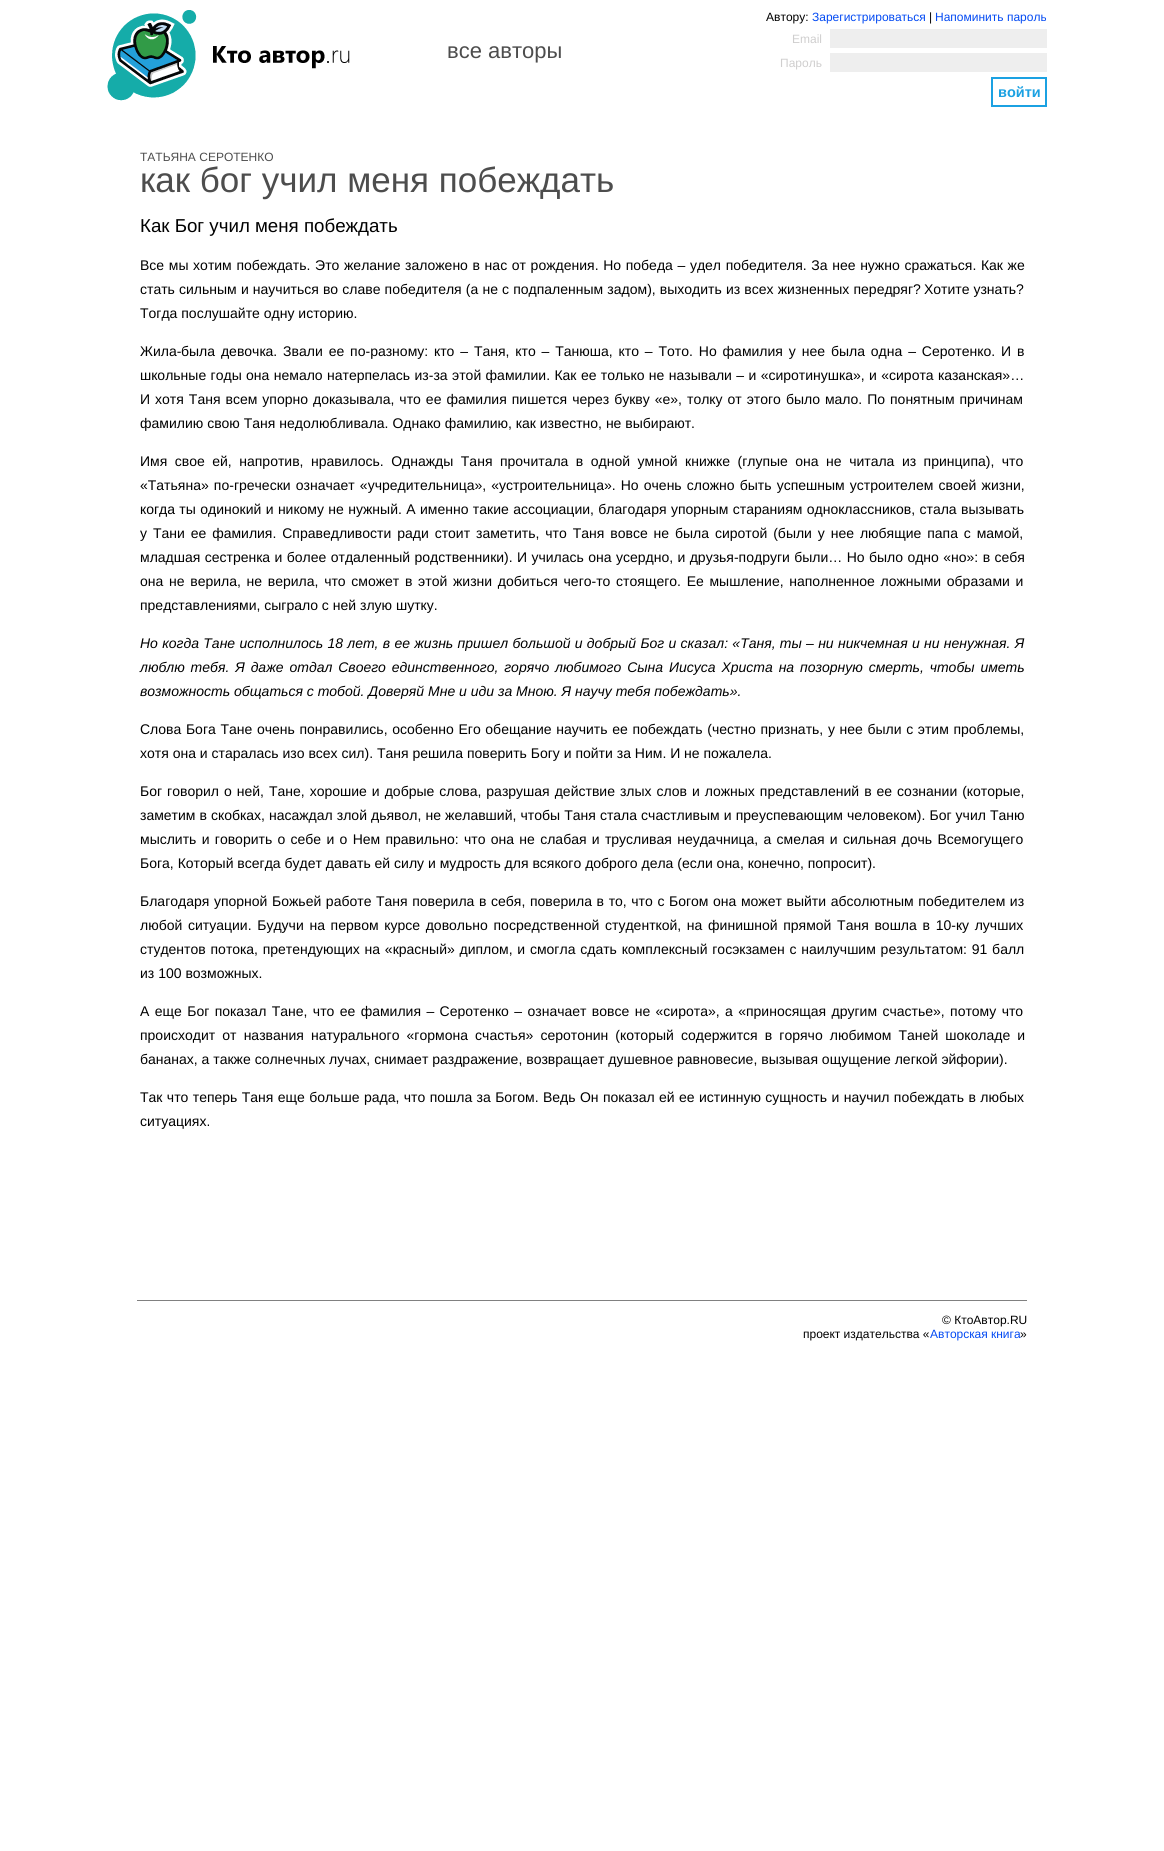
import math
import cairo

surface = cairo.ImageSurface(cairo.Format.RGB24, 1164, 1851)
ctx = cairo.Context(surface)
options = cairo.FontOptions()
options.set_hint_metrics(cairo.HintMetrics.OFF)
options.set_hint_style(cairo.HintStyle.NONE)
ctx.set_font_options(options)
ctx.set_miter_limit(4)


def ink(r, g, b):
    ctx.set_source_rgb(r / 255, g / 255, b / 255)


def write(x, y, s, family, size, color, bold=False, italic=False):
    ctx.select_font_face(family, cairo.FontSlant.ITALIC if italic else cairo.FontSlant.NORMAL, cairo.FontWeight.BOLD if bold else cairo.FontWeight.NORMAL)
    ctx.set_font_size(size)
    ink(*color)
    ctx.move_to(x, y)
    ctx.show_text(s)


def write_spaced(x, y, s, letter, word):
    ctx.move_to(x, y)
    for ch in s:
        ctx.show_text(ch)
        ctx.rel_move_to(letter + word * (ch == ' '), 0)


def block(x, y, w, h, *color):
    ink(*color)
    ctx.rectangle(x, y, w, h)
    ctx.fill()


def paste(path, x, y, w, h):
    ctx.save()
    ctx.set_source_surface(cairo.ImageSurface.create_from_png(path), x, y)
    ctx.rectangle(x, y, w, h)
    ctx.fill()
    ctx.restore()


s1 = dict(family="Liberation Sans", size=22, color=(77, 77, 77))
s2 = dict(family="Liberation Sans", size=12, color=(0, 0, 0))
s3 = dict(family="Liberation Sans", size=12, color=(3, 74, 243))
s4 = dict(family="Liberation Sans", size=12, color=(207, 206, 206))
s5 = dict(family="Liberation Sans", size=14.5, color=(27, 161, 226), bold=True)
s6 = dict(family="Liberation Sans", size=12, color=(77, 77, 77))
s7 = dict(family="Liberation Sans", size=35, color=(77, 77, 77))
s8 = dict(family="Liberation Sans", size=18.7, color=(0, 0, 0))
s9 = dict(family="Liberation Sans", size=14, color=(0, 0, 0))
s10 = dict(family="Liberation Sans", size=14, color=(0, 0, 0), italic=True)

ink(255, 255, 255)
ctx.paint()
paste("pic1.png", 107, 10, 243, 91)
write(447, 58, "все авторы", **s1)
write(766, 21, "Автору:", **s2)
write(812, 21, "Зарегистрироваться", **s3)
write(929, 21, "|", **s2)
write(935, 21, "Напоминить пароль", **s3)
write(792, 43, "Email", **s4)
block(830, 29, 217, 19, 238, 238, 238)
write(780, 67, "Пароль", **s4)
block(830, 53, 217, 19, 238, 238, 238)
ctx.rectangle(992, 78, 54, 28)
ink(27, 161, 226)
ctx.stroke()
write(998, 97, "войти", **s5)
write(140, 161, "ТАТЬЯНА СЕРОТЕНКО", **s6)
write(140, 192, "как бог учил меня побеждать", **s7)
write(140, 232, "Как Бог учил меня побеждать", **s8)
ctx.set_font_size(14)
write_spaced(140, 270, "Все мы хотим побеждать. Это желание заложено в нас от рождения. Но победа – удел победителя. За нее нужно сражаться. Как же", 0, 0.75)
write_spaced(140, 294, "стать сильным и научиться во славе победителя (а не с подпаленным задом), выходить из всех жизненных передряг?", 0, 0.25)
write(924, 294, "Хотите узнать?", **s9)
write(140, 318, "Тогда послушайте одну историю.", **s9)
write(140, 356, "Жила-", **s9)
write_spaced(181, 356, "была девочка. Звали ее по-разному: кто – Таня, кто – Танюша, кто – Тото. Но фамилия у нее была одна – Серотенко. И в", 0, 2)
write_spaced(140, 380, "школьные годы она немало натерпелась из-за этой фамилии. Как ее только не называли – и «сиротинушка», и «сирота казанская»…", 0, 0.5)
write_spaced(140, 404, "И хотя Таня всем упорно доказывала, что ее фамилия пишется через букву «е», толку от этого было мало. По понятным причинам", 0, 1.1)
write(140, 428, "фамилию свою Таня недолюбливала. Однако фамилию, как известно, не выбирают.", **s9)
write_spaced(140, 466, "Имя свое ей, напротив, нравилось. Однажды Таня прочитала в одной умной книжке (глупые она не читала из принципа), что", 0, 3.6)
write_spaced(140, 490, "«Татьяна» по-гречески означает «учредительница», «устроительница». Но очень сложно быть успешным устроителем своей жизни,", 0, 1.25)
write_spaced(140, 514, "когда ты одинокий и никому не нужный. А именно такие ассоциации, благодаря упорным стараниям одноклассников, стала вызывать", 0, 0.5)
write_spaced(140, 538, "у Тани ее фамилия. Справедливости ради стоит заметить, что Таня вовсе не была сиротой (были у нее любящие папа с мамой,", 0, 2)
write_spaced(140, 562, "младшая сестренка и более отдаленный родственники). И училась она усердно, и друзья-подруги были… Но было одно «но»: в себя", 0, 0.5)
write_spaced(140, 586, "она не верила, не верила, что сможет в этой жизни добиться чего-то стоящего. Ее мышление, наполненное ложными образами и", 0, 1.8)
write(140, 610, "представлениями, сыграло с ней злую шутку.", **s9)
ctx.select_font_face("Liberation Sans", cairo.FontSlant.ITALIC)
write_spaced(140, 648, "Но когда Тане исполнилось 18 лет, в ее жизнь пришел большой и добрый Бог и сказал: «Таня, ты – ни никчемная и ни ненужная. Я", 0, 0.4)
write_spaced(140, 672, "люблю тебя. Я даже отдал Своего единственного, горячо любимого Сына Иисуса Христа на позорную смерть, чтобы иметь", 0, 2)
write(140, 696, "возможность общаться с тобой. Доверяй Мне и иди за Мною. Я научу тебя побеждать».", **s10)
ctx.select_font_face("Liberation Sans")
write_spaced(140, 734, "Слова Бога Тане очень понравились, особенно Его обещание научить ее побеждать (честно признать, у нее были с этим проблемы,", 0, 0.75)
write(140, 758, "хотя она и старалась изо всех сил). Таня решила поверить Богу и пойти за Ним. И не пожалела.", **s9)
write_spaced(140, 796, "Бог говорил о ней, Тане, хорошие и добрые слова, разрушая действие злых слов и ложных представлений в ее сознании (которые,", 0, 1.1)
write_spaced(140, 820, "заметим в скобках, насаждал злой дьявол, не желавший, чтобы Таня стала счастливым и преуспевающим человеком). Бог учил Таню", 0, 0.2)
write_spaced(140, 844, "мыслить и говорить о себе и о Нем правильно: что она не слабая и трусливая неудачница, а смелая и сильная дочь Всемогущего", 0, 1.4)
write(140, 868, "Бога, Который всегда будет давать ей силу и мудрость для всякого доброго дела (если она, конечно, попросит).", **s9)
write_spaced(140, 906, "Благодаря упорной Божьей работе Таня поверила в себя, поверила в то, что с Богом она может выйти абсолютным победителем из", 0, 0.7)
write_spaced(140, 930, "любой ситуации. Будучи на первом курсе довольно посредственной студенткой, на финишной прямой Таня вошла в 10-ку лучших", 0, 1.8)
write_spaced(140, 954, "студентов потока, претендующих на «красный» диплом, и смогла сдать комплексный госэкзамен с наилучшим результатом: 91 балл", 0, 0.9)
write(140, 978, "из 100 возможных.", **s9)
write_spaced(140, 1016, "А еще Бог показал Тане, что ее фамилия – Серотенко – означает вовсе не «сирота», а «приносящая другим счастье», потому что", 0, 1.5)
write_spaced(140, 1040, "происходит от названия натурального «гормона счастья» серотонин (который содержится в горячо любимом Таней шоколаде и", 0, 3.25)
write(140, 1064, "бананах, а также солнечных лучах, снимает раздражение, возвращает душевное равновесие, вызывая ощущение легкой эйфории).", **s9)
write_spaced(140, 1102, "Так что теперь Таня еще больше рада, что пошла за Богом. Ведь Он показал ей ее истинную сущность и научил побеждать в любых", 0, 0.5)
write(140, 1126, "ситуациях.", **s9)
block(137, 1300, 890, 1, 128, 128, 128)
write(942, 1324, "© КтоАвтор.RU", **s2)
write(803, 1338, "проект издательства «", **s2)
write(930, 1338, "Авторская книга", **s3)
write(1020, 1338, "»", **s2)
surface.write_to_png("screenshot.png")
